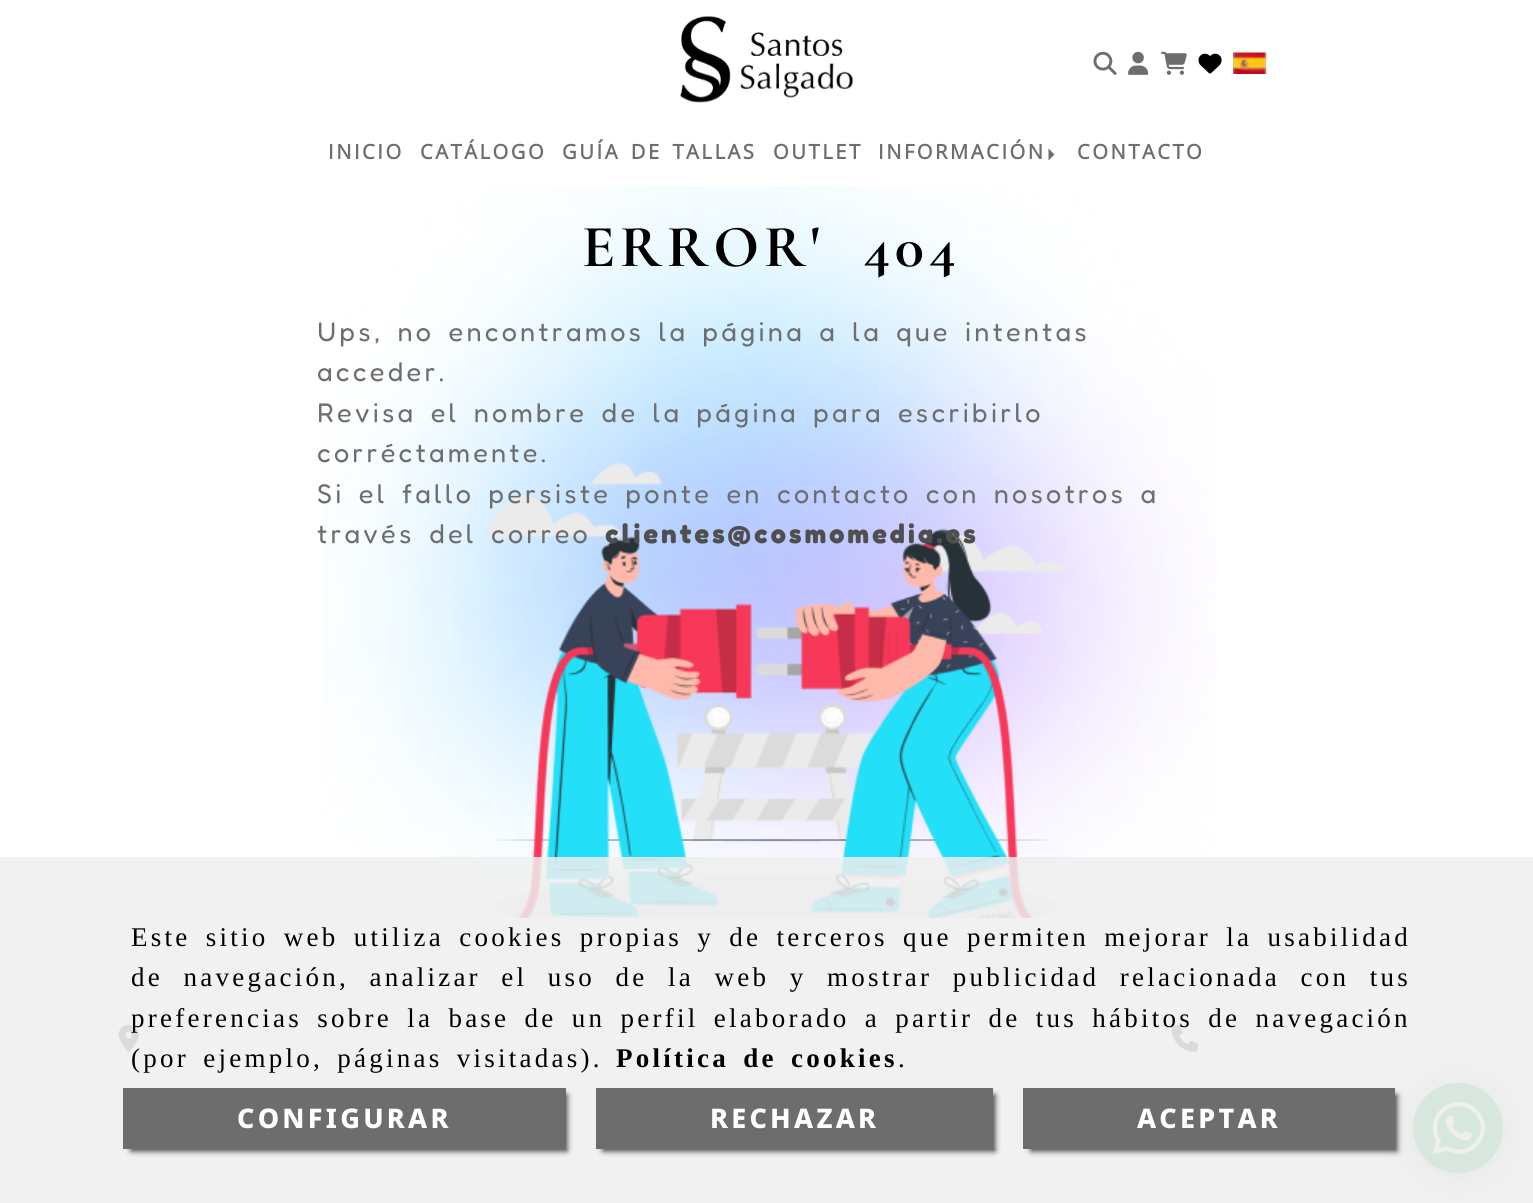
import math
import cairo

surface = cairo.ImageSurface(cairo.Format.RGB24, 1533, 1203)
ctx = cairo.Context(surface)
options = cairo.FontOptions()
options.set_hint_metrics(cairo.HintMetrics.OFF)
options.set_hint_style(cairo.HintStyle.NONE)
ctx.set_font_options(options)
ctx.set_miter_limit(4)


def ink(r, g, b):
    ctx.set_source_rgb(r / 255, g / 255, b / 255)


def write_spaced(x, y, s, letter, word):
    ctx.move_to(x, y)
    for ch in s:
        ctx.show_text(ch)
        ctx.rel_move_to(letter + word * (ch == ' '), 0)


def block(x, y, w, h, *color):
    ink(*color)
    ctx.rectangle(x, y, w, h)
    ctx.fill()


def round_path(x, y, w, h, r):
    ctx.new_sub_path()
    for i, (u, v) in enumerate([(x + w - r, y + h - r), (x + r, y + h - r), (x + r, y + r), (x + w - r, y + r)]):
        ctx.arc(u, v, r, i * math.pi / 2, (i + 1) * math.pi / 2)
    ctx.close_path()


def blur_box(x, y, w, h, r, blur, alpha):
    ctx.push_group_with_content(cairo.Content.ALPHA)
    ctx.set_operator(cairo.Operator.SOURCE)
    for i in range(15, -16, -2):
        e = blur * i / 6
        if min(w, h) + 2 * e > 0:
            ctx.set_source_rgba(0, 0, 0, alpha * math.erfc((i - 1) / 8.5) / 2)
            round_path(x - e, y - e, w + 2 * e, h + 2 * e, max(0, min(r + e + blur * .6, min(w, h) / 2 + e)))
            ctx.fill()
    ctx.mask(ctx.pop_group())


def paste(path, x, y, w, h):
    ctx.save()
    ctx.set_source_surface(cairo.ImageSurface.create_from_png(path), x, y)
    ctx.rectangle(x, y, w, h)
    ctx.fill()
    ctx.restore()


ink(255, 255, 255)
ctx.paint()
paste("pic1.png", 680, 16, 174, 87)
paste("pic2.png", 1093, 51, 24, 24)
paste("pic3.png", 1128, 51, 21, 24)
paste("pic4.png", 1161, 51, 26, 24)
paste("pic5.png", 1198, 53, 24, 21)
paste("pic6.png", 1233, 52, 34, 22)
ctx.select_font_face("Open Sans", cairo.FontSlant.NORMAL, cairo.FontWeight.BOLD)
ctx.set_font_size(20.25)
ink(110, 110, 110)
write_spaced(328, 159, "INICIO", 2.5, 0)
write_spaced(420, 159, "CATÁLOGO", 2.5, 0)
write_spaced(562, 159, "GUÍA DE TALLAS", 2.5, 3)
write_spaced(773, 159, "OUTLET", 2.5, 0)
write_spaced(878, 159, "INFORMACIÓN", 2.5, 0)
ctx.new_path()
ctx.move_to(1048.5, 160.5)
ctx.line_to(1048.5, 148.5)
ctx.line_to(1054.5, 154.5)
ctx.close_path()
ctx.fill()
write_spaced(1077, 159, "CONTACTO", 2.5, 0)
paste("pic7.png", 323, 186, 893, 732)
ctx.select_font_face("Cormorant Garamond", cairo.FontSlant.NORMAL, cairo.FontWeight.BOLD)
ctx.set_font_size(60)
ink(0, 0, 0)
write_spaced(582, 266, "ERROR'", 4.75, 0)
write_spaced(863, 266, "404", 4.75, 0)
ctx.select_font_face("Fredoka")
ctx.set_font_size(27)
ink(110, 110, 110)
write_spaced(317, 341, "Ups, no encontramos la página a la que intentas", 3.25, 4.25)
write_spaced(317, 381, "acceder.", 3.25, 0)
write_spaced(317, 422, "Revisa el nombre de la página para escribirlo", 3.25, 4.25)
write_spaced(317, 462, "corréctamente.", 3.25, 0)
write_spaced(317, 503, "Si el fallo persiste ponte en contacto con nosotros a", 3.25, 4.25)
write_spaced(317, 543, "través del correo", 3.25, 4.25)
ctx.select_font_face("Fredoka", cairo.FontSlant.NORMAL, cairo.FontWeight.BOLD)
ink(79, 79, 79)
write_spaced(605, 543, "clientes@cosmomedia.es", 3.25, 0)
ink(0, 0, 0)
blur_box(1413, 1086, 90, 90, 45, 24, 0.2)
blur_box(1413, 1085, 90, 90, 45, 4.5, 0.1)
ink(78, 185, 128)
ctx.arc(1458, 1128, 45, 0, 2 * math.pi)
ctx.fill()
paste("pic8.png", 1432, 1101, 53, 54)
paste("pic9.png", 118, 1024, 21, 28)
paste("pic10.png", 1171, 1024, 28, 28)
ctx.set_source_rgba(0.933, 0.933, 0.933, 0.85)
ctx.rectangle(0, 857, 1533, 346)
ctx.fill()
ctx.select_font_face("Liberation Serif")
ink(0, 0, 0)
write_spaced(131, 946, "Este sitio web utiliza cookies propias y de terceros que permiten mejorar la usabilidad", 3.25, 5.25)
write_spaced(131, 986, "de navegación, analizar el uso de la web y mostrar publicidad relacionada con tus", 3.25, 10.5)
write_spaced(131, 1027, "preferencias sobre la base de un perfil elaborado a partir de tus hábitos de navegación", 3.25, 5.25)
write_spaced(131, 1067, "(por ejemplo, páginas visitadas).", 3.25, 4.25)
ctx.select_font_face("Liberation Serif", cairo.FontSlant.NORMAL, cairo.FontWeight.BOLD)
write_spaced(616, 1067, "Política de cookies", 3.25, 4.25)
ctx.select_font_face("Liberation Serif")
write_spaced(898, 1067, ".", 3.25, 0)
ink(0, 0, 0)
blur_box(131, 1095, 436, 56, 0, 3, 0.75)
block(123, 1088, 443, 61, 109, 109, 109)
ctx.select_font_face("Noto Sans ExtraBold")
ink(255, 255, 255)
write_spaced(237, 1128, "CONFIGURAR", 3.25, 0)
ink(0, 0, 0)
blur_box(603, 1095, 392, 56, 0, 3, 0.75)
block(596, 1088, 397, 61, 109, 109, 109)
ink(255, 255, 255)
write_spaced(710, 1128, "RECHAZAR", 3.25, 0)
ink(0, 0, 0)
blur_box(1031, 1095, 366, 56, 0, 3, 0.75)
block(1023, 1088, 372, 61, 109, 109, 109)
ink(255, 255, 255)
write_spaced(1137, 1128, "ACEPTAR", 3.25, 0)
surface.write_to_png("screenshot.png")
